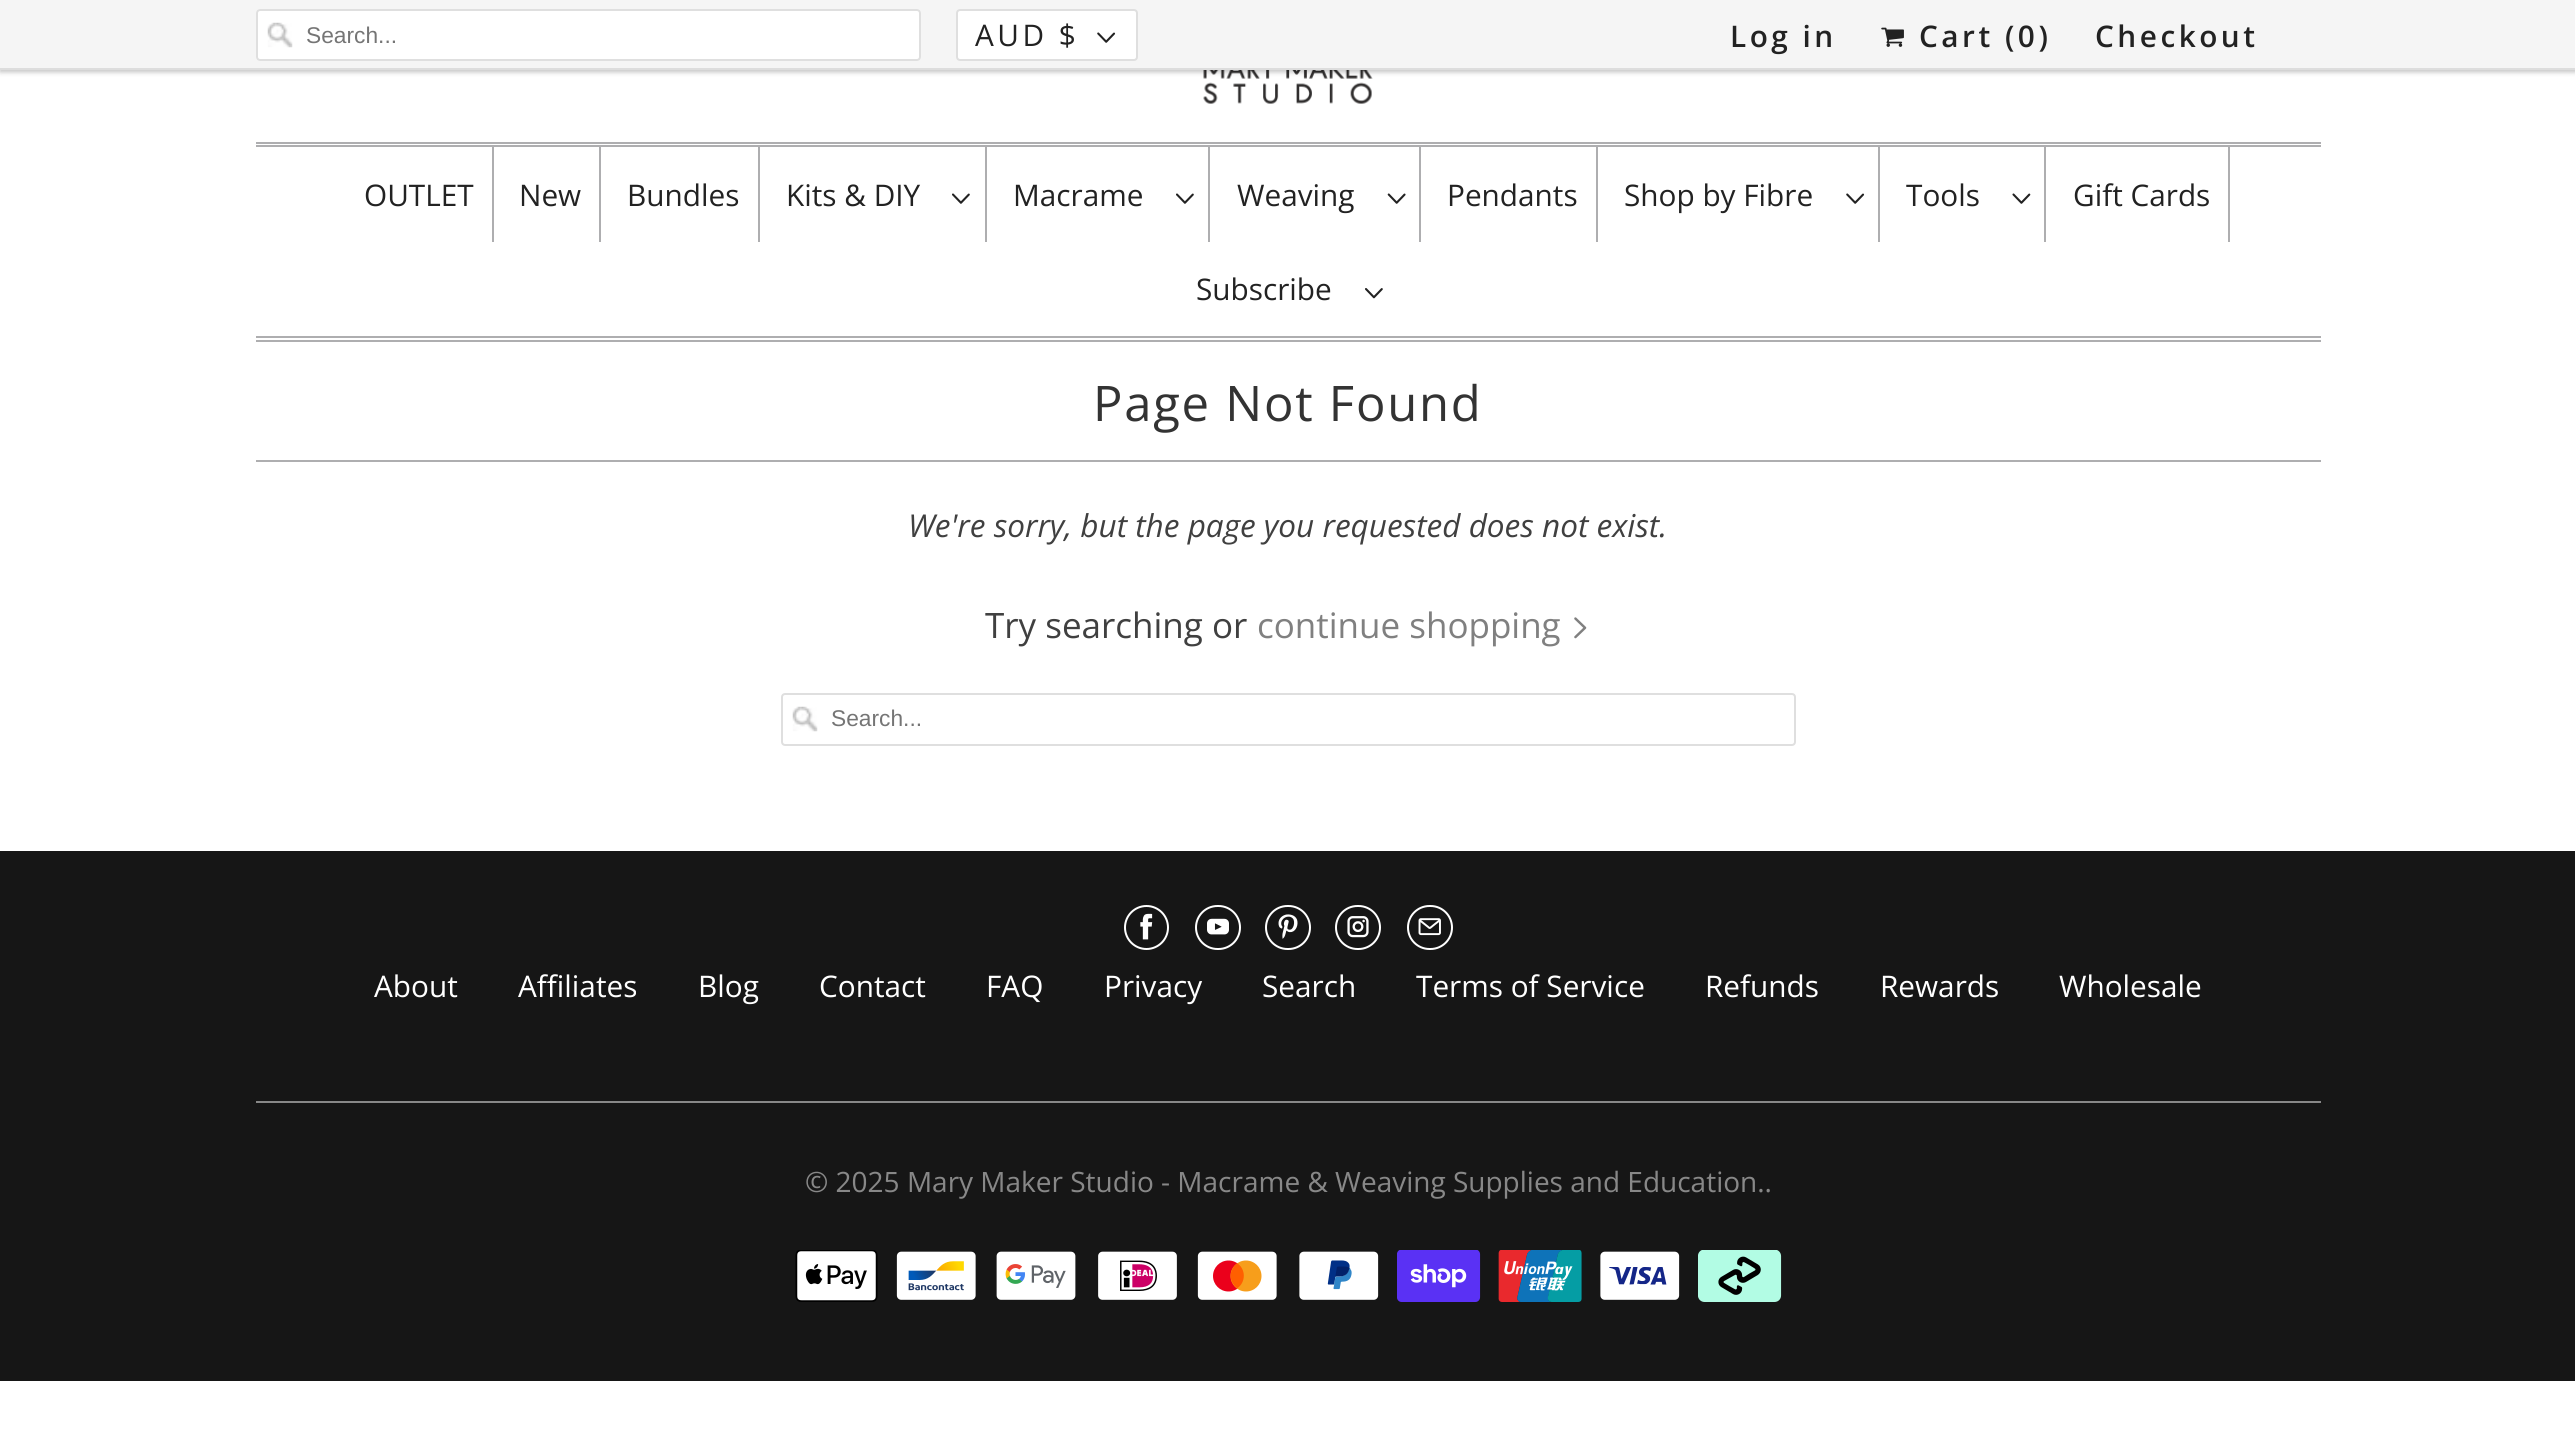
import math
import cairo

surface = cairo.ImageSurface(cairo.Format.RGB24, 2575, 1442)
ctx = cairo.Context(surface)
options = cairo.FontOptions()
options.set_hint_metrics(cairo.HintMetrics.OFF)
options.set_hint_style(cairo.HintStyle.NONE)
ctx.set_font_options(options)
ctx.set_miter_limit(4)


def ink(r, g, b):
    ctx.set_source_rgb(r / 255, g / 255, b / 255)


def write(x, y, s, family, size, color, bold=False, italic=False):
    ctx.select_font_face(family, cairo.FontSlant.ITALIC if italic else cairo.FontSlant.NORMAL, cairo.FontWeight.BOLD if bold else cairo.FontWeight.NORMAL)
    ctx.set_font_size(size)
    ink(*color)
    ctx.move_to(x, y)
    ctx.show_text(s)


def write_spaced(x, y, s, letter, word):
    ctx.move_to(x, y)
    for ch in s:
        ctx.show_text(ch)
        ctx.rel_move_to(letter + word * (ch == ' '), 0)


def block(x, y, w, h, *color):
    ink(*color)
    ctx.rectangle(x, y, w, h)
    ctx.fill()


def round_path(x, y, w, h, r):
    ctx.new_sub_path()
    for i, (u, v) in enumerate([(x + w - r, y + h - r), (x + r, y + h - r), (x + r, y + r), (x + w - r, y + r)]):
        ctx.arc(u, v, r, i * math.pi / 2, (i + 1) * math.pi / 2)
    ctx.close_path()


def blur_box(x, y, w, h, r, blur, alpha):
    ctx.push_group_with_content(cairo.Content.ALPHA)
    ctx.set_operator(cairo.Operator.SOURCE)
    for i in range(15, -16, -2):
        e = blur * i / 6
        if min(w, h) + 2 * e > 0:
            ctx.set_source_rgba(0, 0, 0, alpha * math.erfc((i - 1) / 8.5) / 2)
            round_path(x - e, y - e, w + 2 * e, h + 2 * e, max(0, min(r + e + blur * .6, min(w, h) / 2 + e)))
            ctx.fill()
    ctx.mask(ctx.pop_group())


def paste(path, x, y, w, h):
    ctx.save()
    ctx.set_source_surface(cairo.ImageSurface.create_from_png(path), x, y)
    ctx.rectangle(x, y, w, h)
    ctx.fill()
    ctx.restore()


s1 = dict(family="Liberation Sans", size=22.75, color=(117, 117, 117))
s2 = dict(family="Open Sans", size=29.75, color=(34, 34, 34))
s3 = dict(family="Open Sans", size=31.5, color=(64, 64, 64), italic=True)
s4 = dict(family="Open Sans", size=35, color=(64, 64, 64))
s5 = dict(family="Open Sans", size=35, color=(128, 128, 128))
s6 = dict(family="Open Sans", size=29.75, color=(255, 255, 255))
s7 = dict(family="Open Sans", size=28, color=(136, 136, 136))

ink(255, 255, 255)
ctx.paint()
paste("pic4.png", 1203, 70, 170, 34)
ink(0, 0, 0)
blur_box(0, 2, 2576, 70, 0, 2.5, 0.25)
block(0, 0, 2575, 68, 245, 245, 245)
block(0, 68, 2575, 2, 221, 221, 221)
ink(255, 255, 255)
round_path(256, 9, 665, 52, 4)
ctx.fill()
paste("pic1.png", 267, 22, 26, 26)
round_path(257, 10, 663, 50, 3)
ink(223, 223, 223)
ctx.stroke()
write(306, 43, "Search...", **s1)
ink(255, 255, 255)
round_path(957, 10, 180, 50, 3)
ctx.fill_preserve()
ink(223, 223, 223)
ctx.stroke()
ctx.select_font_face("Open Sans")
ctx.set_font_size(29.75)
ink(34, 34, 34)
write_spaced(975, 46, "AUD $", 3.5, 0)
paste("pic2.png", 1097, 32, 19, 11)
ctx.select_font_face("Open Sans SemiBold")
write_spaced(1730, 47, "Log in", 3.5, 0)
paste("pic3.png", 1881, 27, 23, 20)
write_spaced(1919, 47, "Cart (0)", 3.5, 0)
write_spaced(2095, 47, "Checkout", 3.5, 0)
block(256, 142, 2065, 2, 174, 174, 176)
block(256, 145, 2065, 2, 174, 174, 176)
block(256, 336, 2065, 2, 174, 174, 176)
block(256, 340, 2065, 2, 174, 174, 176)
block(492, 147, 2, 95, 174, 174, 176)
write(364, 206, "OUTLET", **s2)
block(599, 147, 2, 95, 174, 174, 176)
write(519, 206, "New", **s2)
block(758, 147, 2, 95, 174, 174, 176)
write(627, 206, "Bundles", **s2)
block(985, 147, 2, 95, 174, 174, 176)
write(786, 206, "Kits & DIY", **s2)
paste("pic5.png", 952, 193, 18, 11)
block(1208, 147, 2, 95, 174, 174, 176)
write(1013, 206, "Macrame", **s2)
paste("pic5.png", 1176, 193, 18, 11)
block(1419, 147, 2, 95, 174, 174, 176)
write(1237, 206, "Weaving", **s2)
paste("pic6.png", 1387, 193, 19, 11)
block(1596, 147, 2, 95, 174, 174, 176)
write(1447, 206, "Pendants", **s2)
block(1878, 147, 2, 95, 174, 174, 176)
write(1624, 206, "Shop by Fibre", **s2)
paste("pic2.png", 1846, 193, 19, 11)
block(2044, 147, 2, 95, 174, 174, 176)
write(1906, 206, "Tools", **s2)
paste("pic7.png", 2012, 193, 19, 11)
block(2228, 147, 2, 95, 174, 174, 176)
write(2073, 206, "Gift Cards", **s2)
write(1196, 300, "Subscribe", **s2)
paste("pic8.png", 1365, 288, 18, 11)
block(256, 460, 2065, 2, 174, 174, 176)
ctx.set_font_size(49)
ink(51, 51, 51)
write_spaced(1093, 421, "Page Not Found", 1.75, 0)
write(908, 537, "We're sorry, but the page you requested does not exist.", **s3)
write(985, 638, "Try searching or", **s4)
write(1257, 638, "continue shopping", **s5)
paste("pic9.png", 1574, 617, 13, 22)
paste("pic10.png", 792, 706, 26, 26)
round_path(782, 694, 1013, 51, 3)
ink(223, 223, 223)
ctx.stroke()
write(831, 726, "Search...", **s1)
block(0, 851, 2575, 530, 22, 22, 22)
ctx.new_path()
ctx.arc(1146.5, 927.5, 21.5, 0, 2 * math.pi)
ink(255, 255, 255)
ctx.stroke()
paste("pic11.png", 1140, 913, 13, 27)
round_path(1196, 906, 44, 43, 21.5)
ctx.stroke()
paste("pic12.png", 1207, 918, 22, 17)
round_path(1266, 906, 44, 43, 21.5)
ctx.stroke()
paste("pic13.png", 1278, 914, 20, 25)
round_path(1336, 906, 44, 43, 21.5)
ctx.stroke()
paste("pic14.png", 1347, 916, 22, 22)
round_path(1408, 906, 44, 43, 21.5)
ctx.stroke()
paste("pic15.png", 1418, 918, 23, 18)
write(374, 997, "About", **s6)
write(518, 997, "Affiliates", **s6)
write(698, 997, "Blog", **s6)
write(819, 997, "Contact", **s6)
write(986, 997, "FAQ", **s6)
write(1104, 997, "Privacy", **s6)
write(1262, 997, "Search", **s6)
write(1416, 997, "Terms of Service", **s6)
write(1705, 997, "Refunds", **s6)
write(1880, 997, "Rewards", **s6)
write(2059, 997, "Wholesale", **s6)
block(256, 1101, 2065, 2, 136, 136, 136)
write(805, 1192, "© 2025 Mary Maker Studio - Macrame & Weaving Supplies and Education..", **s7)
paste("pic16.png", 795, 1250, 83, 52)
paste("pic17.png", 896, 1251, 80, 49)
paste("pic18.png", 996, 1251, 80, 49)
paste("pic19.png", 1098, 1251, 79, 49)
paste("pic20.png", 1197, 1251, 80, 49)
paste("pic21.png", 1299, 1251, 80, 49)
paste("pic22.png", 1397, 1250, 84, 52)
paste("pic23.png", 1498, 1250, 84, 52)
paste("pic24.png", 1600, 1251, 80, 49)
paste("pic25.png", 1698, 1250, 84, 52)
surface.write_to_png("screenshot.png")
